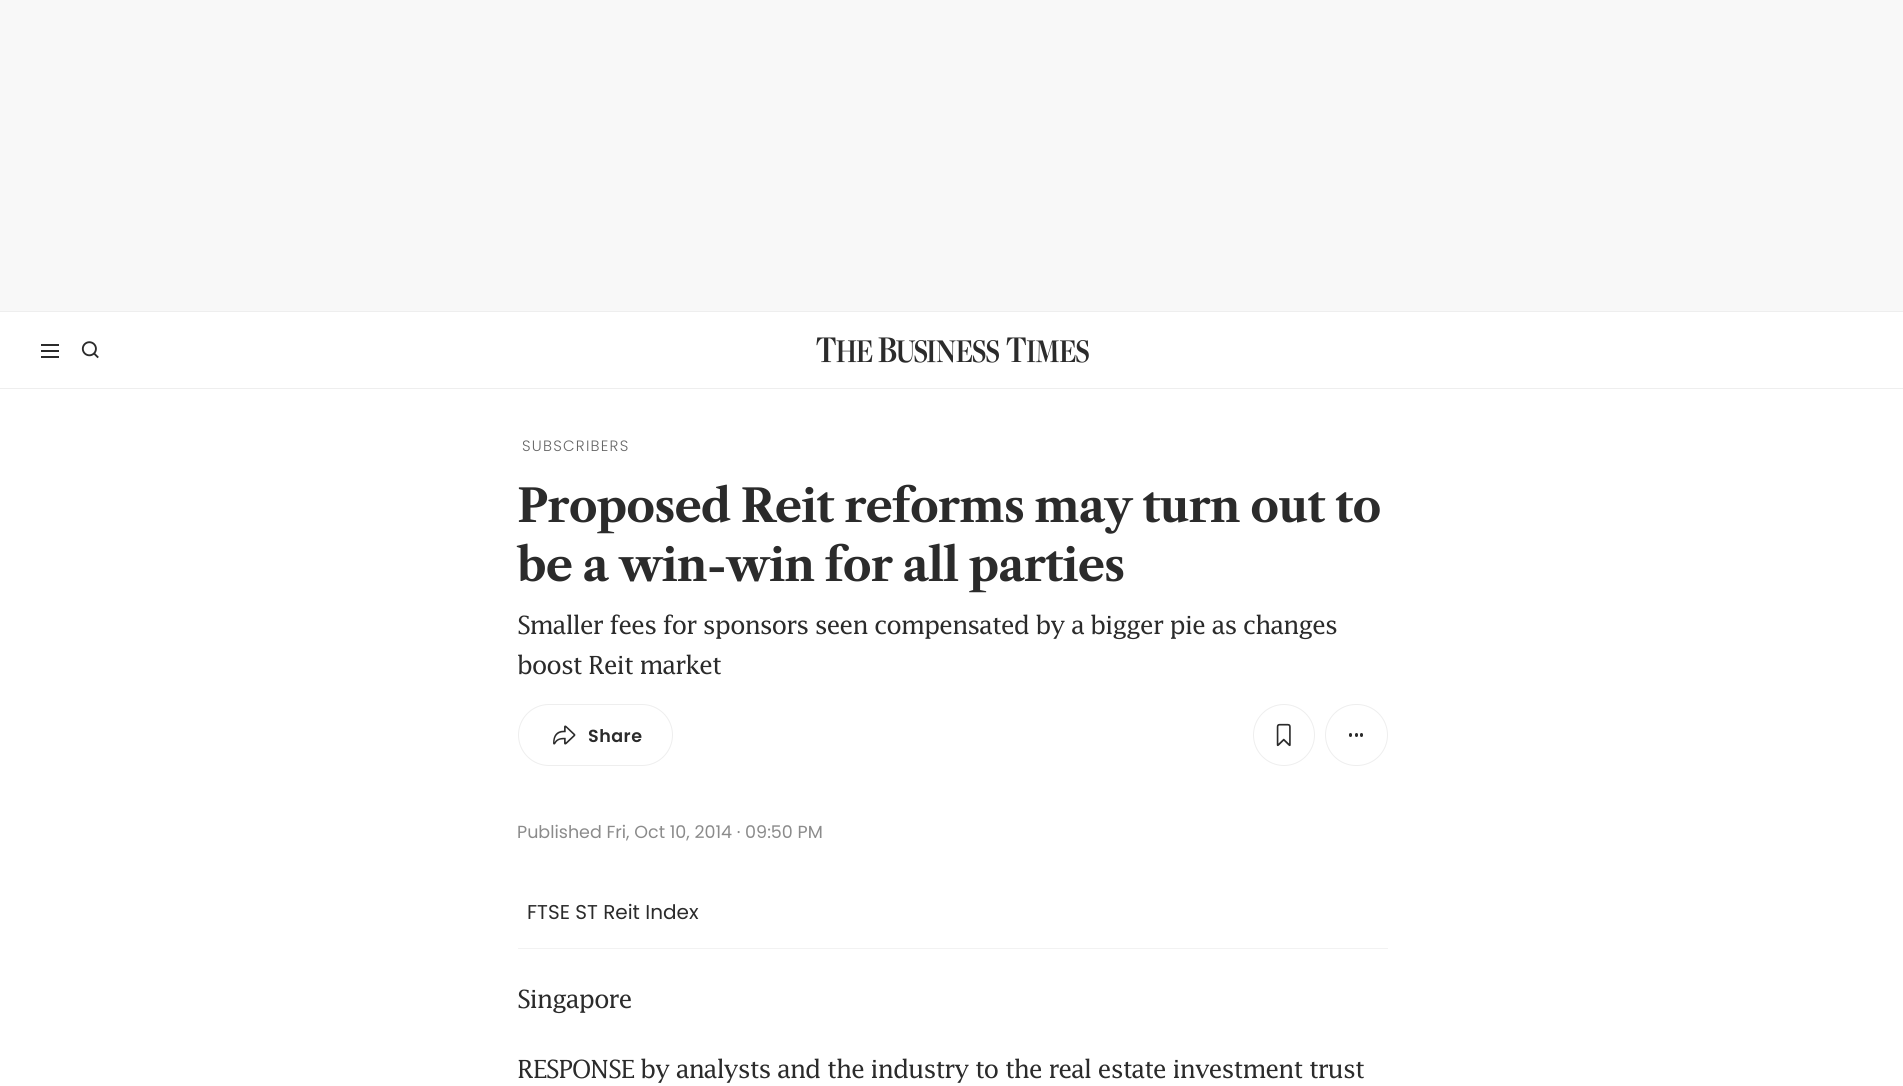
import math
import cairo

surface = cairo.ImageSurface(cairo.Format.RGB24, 1903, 1086)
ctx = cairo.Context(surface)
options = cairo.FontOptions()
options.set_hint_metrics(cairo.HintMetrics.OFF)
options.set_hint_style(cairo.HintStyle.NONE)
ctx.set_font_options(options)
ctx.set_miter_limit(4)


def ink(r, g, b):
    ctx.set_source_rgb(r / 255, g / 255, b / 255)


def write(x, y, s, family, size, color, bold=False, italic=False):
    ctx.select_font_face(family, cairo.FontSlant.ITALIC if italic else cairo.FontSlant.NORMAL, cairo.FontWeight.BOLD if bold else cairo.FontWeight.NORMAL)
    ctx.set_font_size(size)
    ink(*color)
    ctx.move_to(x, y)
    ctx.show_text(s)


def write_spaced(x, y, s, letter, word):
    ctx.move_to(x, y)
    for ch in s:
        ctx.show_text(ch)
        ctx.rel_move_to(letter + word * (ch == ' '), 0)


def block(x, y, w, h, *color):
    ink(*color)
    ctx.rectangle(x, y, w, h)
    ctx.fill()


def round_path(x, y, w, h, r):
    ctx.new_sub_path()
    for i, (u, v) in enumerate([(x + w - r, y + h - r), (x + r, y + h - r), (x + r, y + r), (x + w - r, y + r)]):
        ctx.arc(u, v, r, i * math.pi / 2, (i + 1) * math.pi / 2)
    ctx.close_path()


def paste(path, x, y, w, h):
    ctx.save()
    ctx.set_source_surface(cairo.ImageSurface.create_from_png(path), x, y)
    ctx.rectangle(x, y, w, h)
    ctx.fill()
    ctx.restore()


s1 = dict(family="Poppins", size=17.5, color=(139, 139, 139))
s2 = dict(family="Poppins", size=20, color=(43, 43, 43))

ink(255, 255, 255)
ctx.paint()
block(0, 0, 1903, 311, 248, 248, 248)
block(0, 311, 1903, 1, 238, 238, 238)
block(0, 388, 1903, 1, 238, 238, 238)
block(41, 344, 18, 2, 43, 43, 43)
block(41, 350, 18, 2, 43, 43, 43)
block(41, 356, 18, 2, 43, 43, 43)
paste("pic1.png", 81, 341, 18, 18)
paste("pic2.png", 816, 337, 273, 26)
ctx.select_font_face("Poppins Light")
ctx.set_font_size(15)
ink(102, 102, 102)
write_spaced(522, 451, "SUBSCRIBERS", 1.25, 0)
ctx.select_font_face("Libre Caslon Text", cairo.FontSlant.NORMAL, cairo.FontWeight.BOLD)
ctx.set_font_size(45)
ink(43, 43, 43)
write_spaced(517, 522, "Proposed Reit reforms may turn out to", -0.9, 0)
write_spaced(517, 581, "be a win-win for all parties", -0.9, 0)
ctx.select_font_face("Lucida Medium")
ctx.set_font_size(25)
write_spaced(517, 634, "Smaller fees for sponsors seen compensated by a bigger pie as changes", -1.25, 0)
write_spaced(517, 674, "boost Reit market", -1.25, 0)
round_path(518.5, 704.5, 154, 61, 30.5)
ink(238, 238, 238)
ctx.set_line_width(1)
ctx.stroke()
paste("pic3.png", 553, 725, 23, 20)
ctx.select_font_face("Poppins SemiBold")
ctx.set_font_size(17.5)
ink(43, 43, 43)
write_spaced(588, 742, "Share", 0.5, 0)
ctx.new_path()
ctx.arc(1284, 735, 30.5, 0, 2 * math.pi)
ink(238, 238, 238)
ctx.stroke()
paste("pic4.png", 1276, 723, 15, 24)
round_path(1325.5, 704.5, 62, 61, 30.5)
ctx.stroke()
ink(43, 43, 43)
round_path(1349, 733, 3, 4, 1.5)
ctx.fill()
round_path(1355, 733, 3, 4, 1.5)
ctx.fill()
round_path(1360, 733, 3, 4, 1.5)
ctx.fill()
write(517, 838, "Published Fri, Oct 10, 2014 · 09:50 PM", **s1)
block(518, 948, 870, 1, 242, 242, 242)
write(527, 919, "FTSE ST Reit Index", **s2)
ctx.select_font_face("Lucida Medium")
ctx.set_font_size(25)
write_spaced(517, 1008, "Singapore", -1.25, 0)
write_spaced(517, 1078, "RESPONSE by analysts and the industry to the real estate investment trust", -1.25, 0)
surface.write_to_png("screenshot.png")
